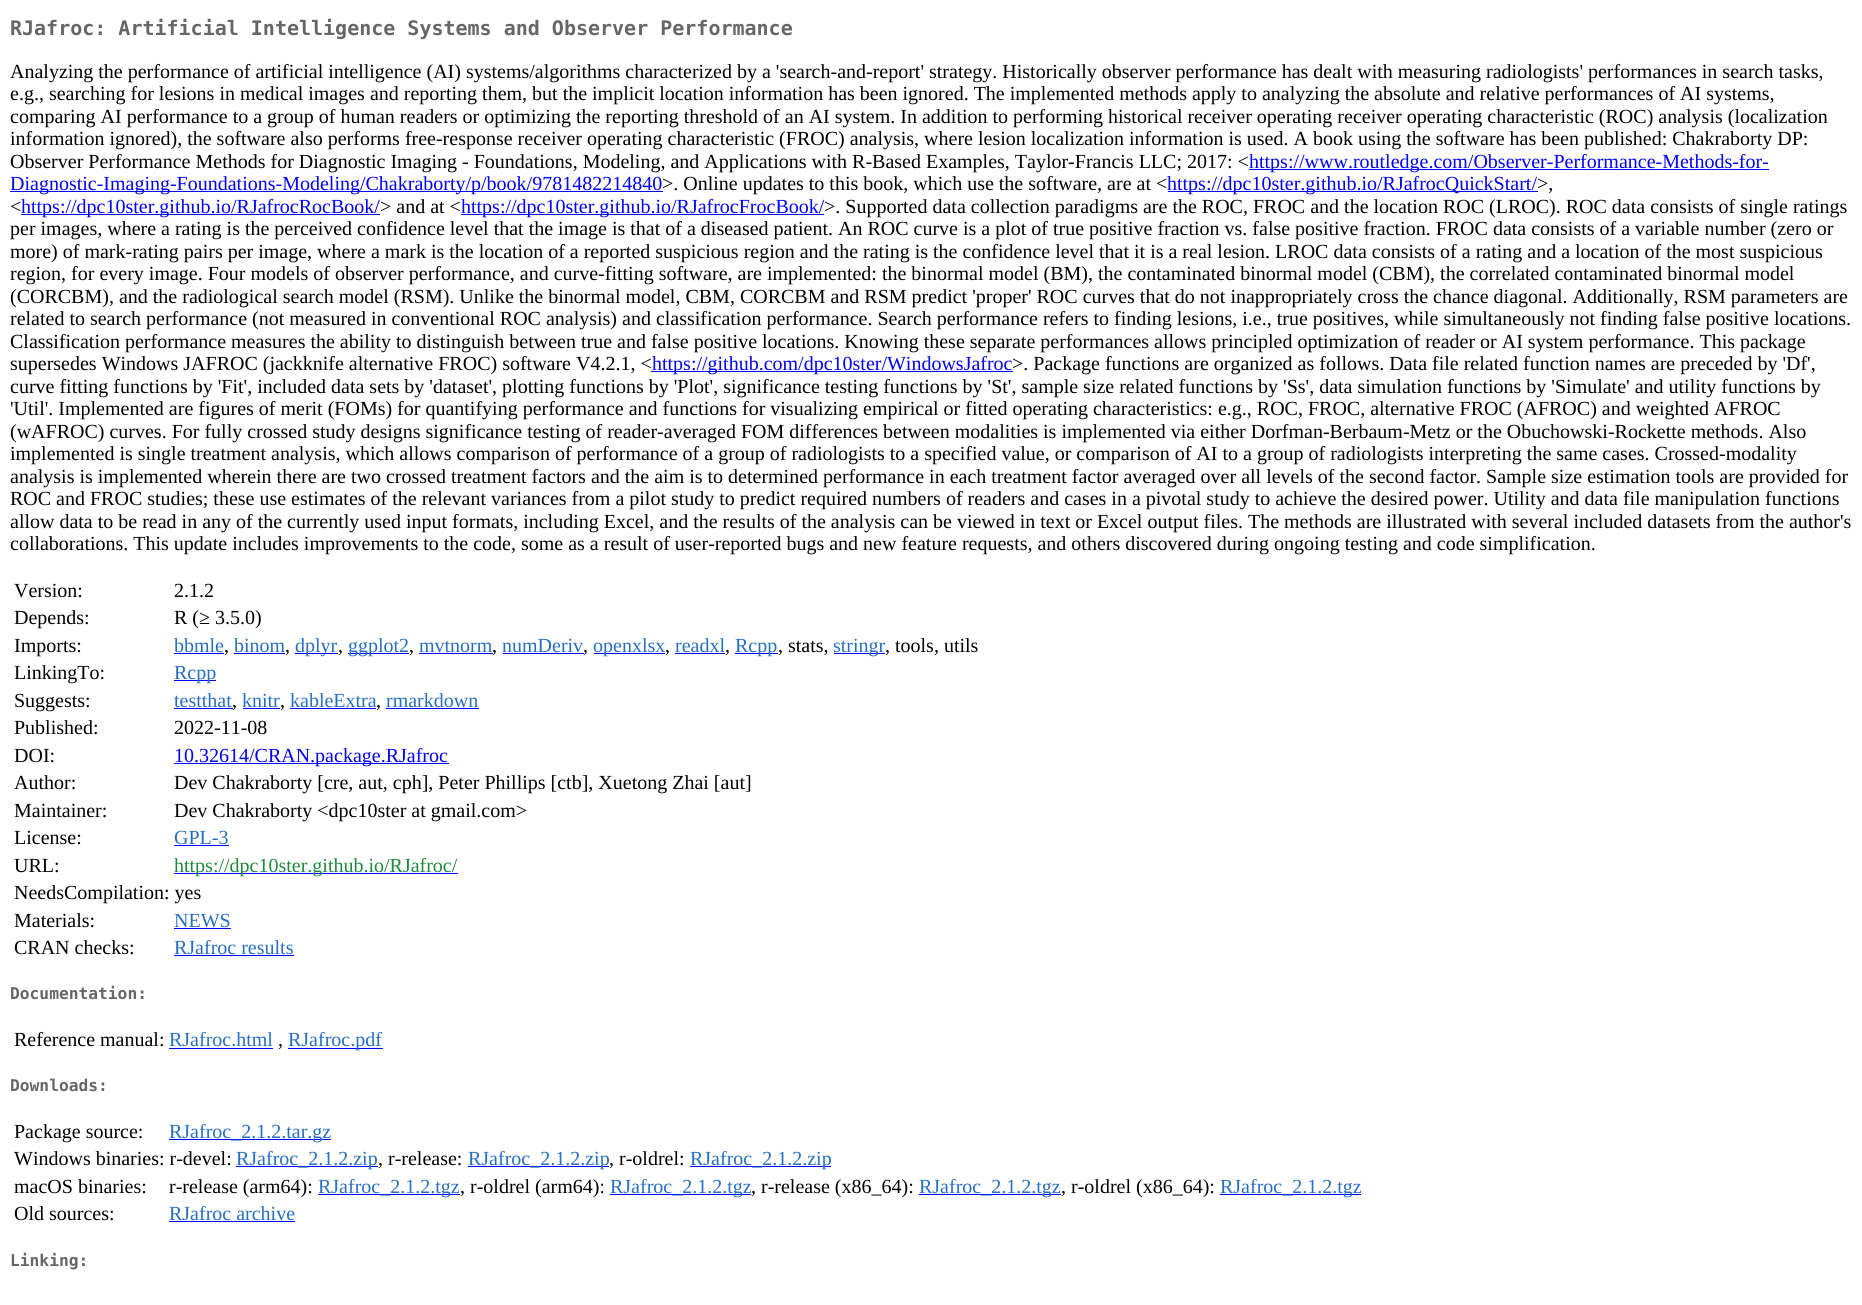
import math
import cairo

surface = cairo.ImageSurface(cairo.FORMAT_RGB24, 1862, 1305)
c = cairo.Context(surface)
options = cairo.FontOptions()
options.set_hint_metrics(cairo.HINT_METRICS_OFF)
options.set_hint_style(cairo.HINT_STYLE_NONE)
c.set_font_options(options)
c.set_miter_limit(4)
def C(code):
 c.set_source_rgb(*(v / 255 for v in bytes.fromhex(code[-6:])))
def F(family, size, italic, bold):
 c.select_font_face(family, cairo.FONT_SLANT_ITALIC if italic else cairo.FONT_SLANT_NORMAL, cairo.FONT_WEIGHT_BOLD if bold else cairo.FONT_WEIGHT_NORMAL)
 c.set_font_size(size)
def T(x, y, s):
 c.move_to(x, y)
 c.show_text(s)
def R(x, y, w, h):
 c.rectangle(x, y, w, h)
 c.fill()
C('ffffff')
c.paint()
F('DejaVu Sans Mono',20,0,1)
C('666666')
T(10,35,'RJafroc: Artificial Intelligence Systems and Observer Performance')
F('Liberation Serif',20,0,0)
C('000000')
T(10,78,'Analyzing the performance of artificial intelligence (AI) systems/algorithms characterized by a \'search-and-report\' strategy. Historically observer performance has dealt with measuring radiologists\' performances in search tasks,')
T(10,100,'e.g., searching for lesions in medical images and reporting them, but the implicit location information has been ignored. The implemented methods apply to analyzing the absolute and relative performances of AI systems,')
T(10,123,'comparing AI performance to a group of human readers or optimizing the reporting threshold of an AI system. In addition to performing historical receiver operating receiver operating characteristic (ROC) analysis (localization')
T(10,145,'information ignored), the software also performs free-response receiver operating characteristic (FROC) analysis, where lesion localization information is used. A book using the software has been published: Chakraborty DP:')
T(10,168,'Observer Performance Methods for Diagnostic Imaging - Foundations, Modeling, and Applications with R-Based Examples, Taylor-Francis LLC; 2017: <')
C('0000ff')
R(1249,169,520,1)
T(1249,168,'https://www.routledge.com/Observer-Performance-Methods-for-')
R(10,191,653,1)
T(10,190,'Diagnostic-Imaging-Foundations-Modeling/Chakraborty/p/book/9781482214840')
C('000000')
T(662,190,'>. Online updates to this book, which use the software, are at <')
C('0000ff')
R(1168,191,370,1)
T(1167,190,'https://dpc10ster.github.io/RJafrocQuickStart/')
C('000000')
T(1537,190,'>,')
T(10,213,'<')
C('0000ff')
R(21,214,359,1)
T(21,213,'https://dpc10ster.github.io/RJafrocRocBook/')
C('000000')
T(380,213,'> and at <')
C('0000ff')
R(461,214,363,1)
T(461,213,'https://dpc10ster.github.io/RJafrocFrocBook/')
C('000000')
T(824,213,'>. Supported data collection paradigms are the ROC, FROC and the location ROC (LROC). ROC data consists of single ratings')
T(10,235,'per images, where a rating is the perceived confidence level that the image is that of a diseased patient. An ROC curve is a plot of true positive fraction vs. false positive fraction. FROC data consists of a variable number (zero or')
T(10,258,'more) of mark-rating pairs per image, where a mark is the location of a reported suspicious region and the rating is the confidence level that it is a real lesion. LROC data consists of a rating and a location of the most suspicious')
T(10,280,'region, for every image. Four models of observer performance, and curve-fitting software, are implemented: the binormal model (BM), the contaminated binormal model (CBM), the correlated contaminated binormal model')
T(10,303,'(CORCBM), and the radiological search model (RSM). Unlike the binormal model, CBM, CORCBM and RSM predict \'proper\' ROC curves that do not inappropriately cross the chance diagonal. Additionally, RSM parameters are')
T(10,325,'related to search performance (not measured in conventional ROC analysis) and classification performance. Search performance refers to finding lesions, i.e., true positives, while simultaneously not finding false positive locations.')
T(10,348,'Classification performance measures the ability to distinguish between true and false positive locations. Knowing these separate performances allows principled optimization of reader or AI system performance. This package')
T(10,370,'supersedes Windows JAFROC (jackknife alternative FROC) software V4.2.1, <')
C('0000ff')
R(651,371,362,1)
T(652,370,'https://github.com/dpc10ster/WindowsJafroc')
C('000000')
T(1012,370,'>. Package functions are organized as follows. Data file related function names are preceded by \'Df\',')
T(10,393,'curve fitting functions by \'Fit\', included data sets by \'dataset\', plotting functions by \'Plot\', significance testing functions by \'St\', sample size related functions by \'Ss\', data simulation functions by \'Simulate\' and utility functions by')
T(10,415,'\'Util\'. Implemented are figures of merit (FOMs) for quantifying performance and functions for visualizing empirical or fitted operating characteristics: e.g., ROC, FROC, alternative FROC (AFROC) and weighted AFROC')
T(10,438,'(wAFROC) curves. For fully crossed study designs significance testing of reader-averaged FOM differences between modalities is implemented via either Dorfman-Berbaum-Metz or the Obuchowski-Rockette methods. Also')
T(10,460,'implemented is single treatment analysis, which allows comparison of performance of a group of radiologists to a specified value, or comparison of AI to a group of radiologists interpreting the same cases. Crossed-modality')
T(10,483,'analysis is implemented wherein there are two crossed treatment factors and the aim is to determined performance in each treatment factor averaged over all levels of the second factor. Sample size estimation tools are provided for')
T(10,505,'ROC and FROC studies; these use estimates of the relevant variances from a pilot study to predict required numbers of readers and cases in a pivotal study to achieve the desired power. Utility and data file manipulation functions')
T(10,528,'allow data to be read in any of the currently used input formats, including Excel, and the results of the analysis can be viewed in text or Excel output files. The methods are illustrated with several included datasets from the author\'s')
T(10,550,'collaborations. This update includes improvements to the code, some as a result of user-reported bugs and new feature requests, and others discovered during ongoing testing and code simplification.')
T(14,597,'Version:')
T(174,597,'2.1.2')
T(14,624,'Depends:')
T(174,624,'R (≥ 3.5.0)')
T(14,652,'Imports:')
C('276dc3')
T(174,652,'bbmle')
C('0000ff')
R(174,653,50,1)
C('000000')
T(224,652,',')
C('276dc3')
T(234,652,'binom')
C('0000ff')
R(234,653,51,1)
C('000000')
T(285,652,',')
C('0000ff')
R(295,653,43,1)
C('276dc3')
T(295,652,'dplyr')
C('000000')
T(338,652,',')
C('0000ff')
R(348,653,61,1)
C('276dc3')
T(348,652,'ggplot2')
C('000000')
T(409,652,',')
C('276dc3')
T(419,652,'mvtnorm')
C('0000ff')
R(419,653,74,1)
C('000000')
T(492,652,',')
C('276dc3')
T(502,652,'numDeriv')
C('0000ff')
R(503,653,81,1)
C('000000')
T(583,652,',')
C('0000ff')
R(594,653,71,1)
C('276dc3')
T(593,652,'openxlsx')
C('000000')
T(665,652,',')
C('276dc3')
T(675,652,'readxl')
C('0000ff')
R(675,653,50,1)
C('000000')
T(725,652,',')
C('0000ff')
R(735,653,43,1)
C('276dc3')
T(735,652,'Rcpp')
C('000000')
T(778,652,', stats,')
C('0000ff')
R(834,653,51,1)
C('276dc3')
T(833,652,'stringr')
C('000000')
T(885,652,', tools, utils')
T(14,679,'LinkingTo:')
C('0000ff')
R(174,680,42,1)
C('276dc3')
T(174,679,'Rcpp')
C('000000')
T(14,707,'Suggests:')
C('276dc3')
T(174,707,'testthat')
C('0000ff')
R(174,708,59,1)
C('000000')
T(232,707,',')
C('276dc3')
T(242,707,'knitr')
C('0000ff')
R(243,708,37,1)
C('000000')
T(280,707,',')
C('276dc3')
T(290,707,'kableExtra')
C('0000ff')
R(290,708,86,1)
C('000000')
T(376,707,',')
C('276dc3')
T(386,707,'rmarkdown')
C('0000ff')
R(386,708,93,1)
C('000000')
T(14,734,'Published:')
T(174,734,'2022-11-08')
T(14,762,'DOI:')
C('0000ff')
R(174,763,275,1)
T(174,762,'10.32614/CRAN.package.RJafroc')
C('000000')
T(14,789,'Author:')
T(174,789,'Dev Chakraborty [cre, aut, cph], Peter Phillips [ctb], Xuetong Zhai [aut]')
T(14,817,'Maintainer:')
T(174,817,'Dev Chakraborty <dpc10ster at gmail.com>')
T(14,844,'License:')
C('276dc3')
T(174,844,'GPL-3')
C('0000ff')
R(174,845,55,1)
C('000000')
T(14,872,'URL:')
C('0000ff')
R(174,873,284,1)
C('1f883d')
T(174,872,'https://dpc10ster.github.io/RJafroc/')
C('000000')
T(14,899,'NeedsCompilation: yes')
T(14,927,'Materials:')
C('276dc3')
T(174,927,'NEWS')
C('0000ff')
R(174,928,57,1)
C('000000')
T(14,954,'CRAN checks:')
C('276dc3')
T(174,954,'RJafroc results')
C('0000ff')
R(174,955,120,1)
F('DejaVu Sans Mono',16.25,0,1)
C('666666')
T(10,999,'Documentation:')
F('Liberation Serif',20,0,0)
C('000000')
T(14,1046,'Reference manual:')
C('276dc3')
T(169,1046,'RJafroc.html')
C('0000ff')
R(169,1048,104,1)
C('000000')
T(278,1046,',')
C('0000ff')
R(288,1048,95,1)
C('276dc3')
T(288,1046,'RJafroc.pdf')
F('DejaVu Sans Mono',16.25,0,1)
C('666666')
T(10,1091,'Downloads:')
F('Liberation Serif',20,0,0)
C('000000')
T(14,1138,'Package source:')
C('0000ff')
R(169,1139,162,1)
C('276dc3')
T(169,1138,'RJafroc_2.1.2.tar.gz')
C('000000')
T(14,1165,'Windows binaries: r-devel:')
C('0000ff')
R(236,1166,142,1)
C('276dc3')
T(236,1165,'RJafroc_2.1.2.zip')
C('000000')
T(378,1165,', r-release:')
C('0000ff')
R(468,1166,141,1)
C('276dc3')
T(468,1165,'RJafroc_2.1.2.zip')
C('000000')
T(609,1165,', r-oldrel:')
C('0000ff')
R(690,1166,141,1)
C('276dc3')
T(690,1165,'RJafroc_2.1.2.zip')
C('000000')
T(14,1193,'macOS binaries:')
T(169,1193,'r-release (arm64):')
C('0000ff')
R(318,1194,142,1)
C('276dc3')
T(318,1193,'RJafroc_2.1.2.tgz')
C('000000')
T(460,1193,', r-oldrel (arm64):')
C('0000ff')
R(610,1194,141,1)
C('276dc3')
T(610,1193,'RJafroc_2.1.2.tgz')
C('000000')
T(751,1193,', r-release (x86_64):')
C('0000ff')
R(919,1194,142,1)
C('276dc3')
T(919,1193,'RJafroc_2.1.2.tgz')
C('000000')
T(1061,1193,', r-oldrel (x86_64):')
C('0000ff')
R(1220,1194,141,1)
C('276dc3')
T(1220,1193,'RJafroc_2.1.2.tgz')
C('000000')
T(14,1220,'Old sources:')
C('276dc3')
T(169,1220,'RJafroc archive')
C('0000ff')
R(169,1221,126,1)
F('DejaVu Sans Mono',16.25,0,1)
C('666666')
T(10,1266,'Linking:')
surface.write_to_png('o.png')
